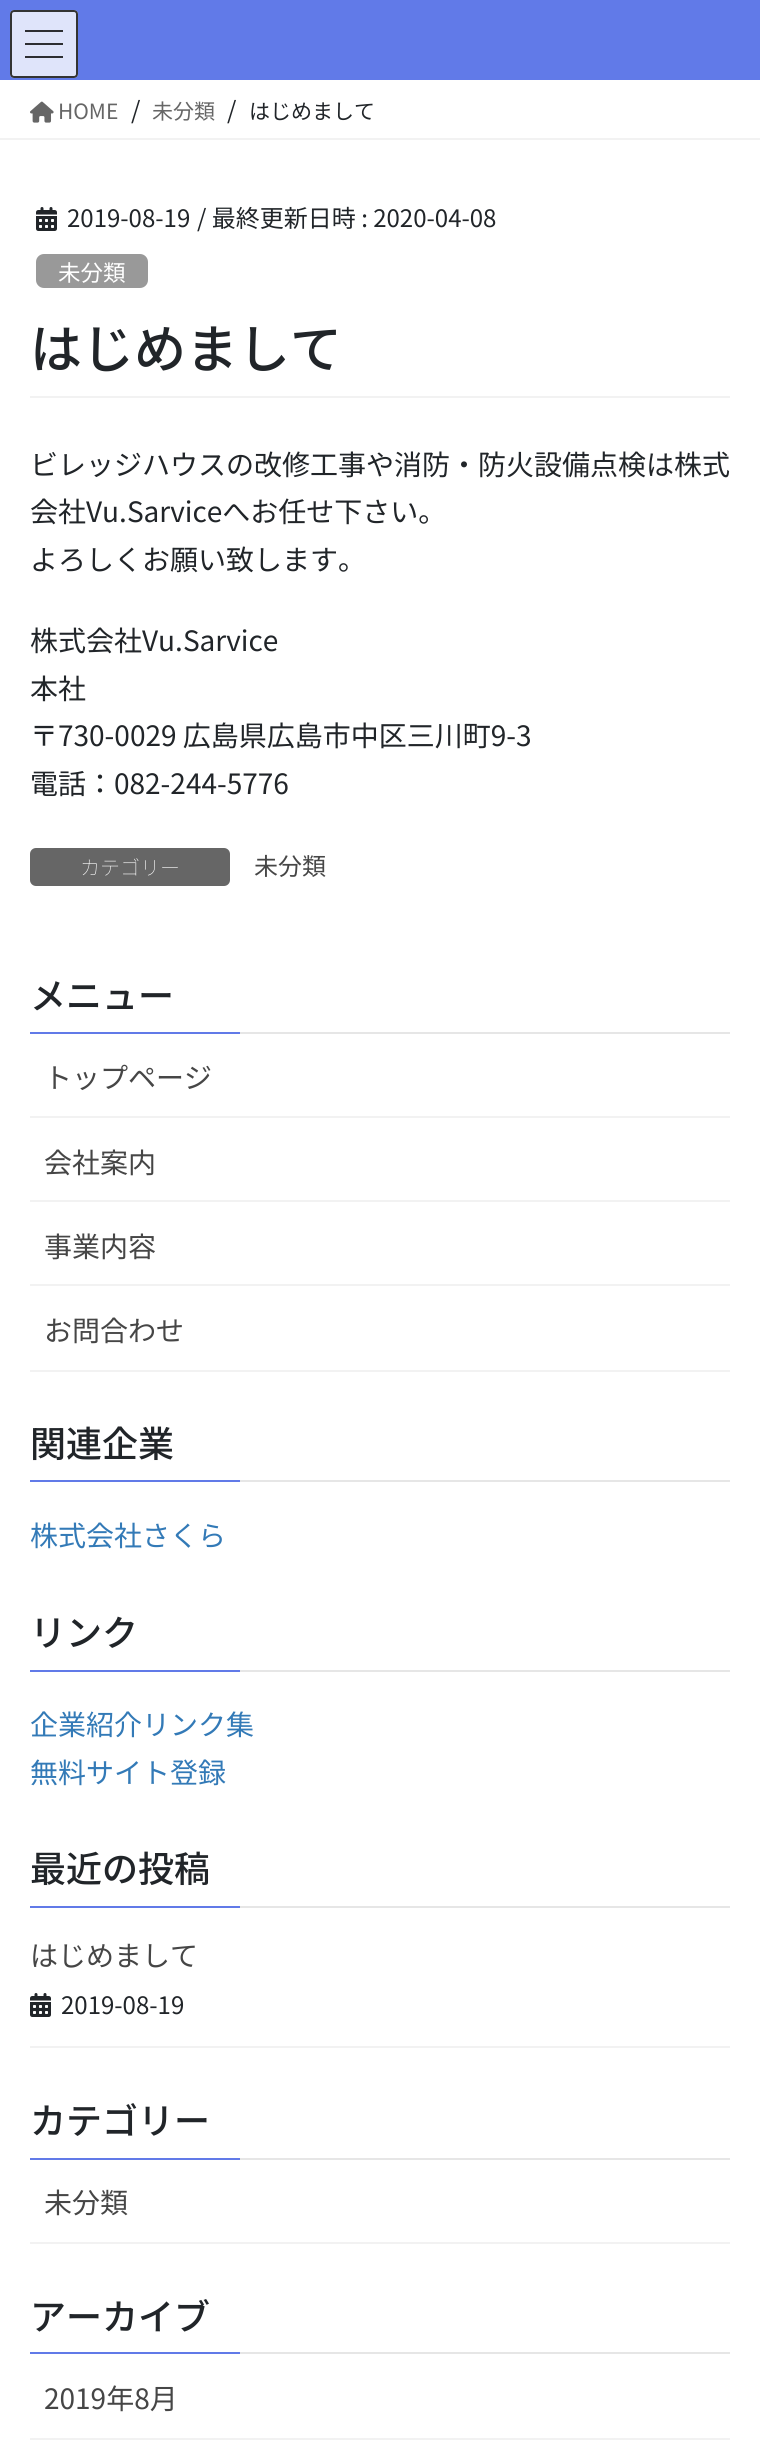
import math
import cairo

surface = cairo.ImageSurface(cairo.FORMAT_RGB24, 760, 2461)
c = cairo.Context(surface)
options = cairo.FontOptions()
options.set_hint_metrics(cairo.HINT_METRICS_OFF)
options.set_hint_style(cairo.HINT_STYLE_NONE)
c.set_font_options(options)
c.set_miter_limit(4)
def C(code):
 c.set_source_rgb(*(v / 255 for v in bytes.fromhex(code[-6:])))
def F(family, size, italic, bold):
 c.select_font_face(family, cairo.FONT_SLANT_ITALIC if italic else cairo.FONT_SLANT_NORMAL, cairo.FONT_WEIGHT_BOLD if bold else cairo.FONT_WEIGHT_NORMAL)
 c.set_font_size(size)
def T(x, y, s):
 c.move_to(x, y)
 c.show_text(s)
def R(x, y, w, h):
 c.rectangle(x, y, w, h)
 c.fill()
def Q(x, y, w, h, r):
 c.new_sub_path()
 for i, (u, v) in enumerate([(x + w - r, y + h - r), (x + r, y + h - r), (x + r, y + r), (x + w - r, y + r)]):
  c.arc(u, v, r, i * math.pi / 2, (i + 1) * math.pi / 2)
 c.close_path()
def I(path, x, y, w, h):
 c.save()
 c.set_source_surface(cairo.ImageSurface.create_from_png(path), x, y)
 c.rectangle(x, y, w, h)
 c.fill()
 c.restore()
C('ffffff')
c.paint()
C('617ae8')
R(0,0,760,80)
C('dfe4fa')
Q(10,10,68,68,4)
c.fill()
C('2d2e32')
R(25,30,38,2)
R(25,43,38,2)
R(25,56,38,2)
Q(11,11,66,66,3)
C('333333')
c.stroke()
C('f2f2f2')
R(0,138,760,2)
I('1.png',30,101,24,22)
F('Noto Sans JP',21,0,0)
C('666666')
T(58,119,'HOME')
F('Noto Sans JP',24,0,0)
C('212529')
T(131,119,'/')
F('Noto Sans JP',21,0,0)
C('666666')
T(152,119,'未分類')
F('Noto Sans JP',24,0,0)
C('212529')
T(227,119,'/')
F('Noto Sans JP',21,0,0)
T(249,119,'はじめまして')
C('f2f2f2')
R(30,396,700,2)
I('2.png',36,207,21,24)
F('Noto Sans JP',24,0,0)
C('212529')
T(67,227,'2019-08-19')
T(197,227,'/ 最終更新日時 : 2020-04-08')
C('999999')
Q(36,254,112,34,8)
c.fill()
F('Noto Sans JP',22.5,0,0)
C('ffffff')
T(58,281,'未分類')
F('Noto Sans JP Medium',52,0,0)
C('212529')
T(30,368,'はじめまして')
F('Noto Sans JP',28,0,0)
T(30,475,'ビレッジハウスの改修工事や消防・防火設備点検は株式')
T(30,522,'会社Vu.Sarviceへお任せ下さい。')
T(30,570,'よろしくお願い致します。')
T(30,651,'株式会社Vu.Sarvice')
T(30,699,'本社')
T(30,746,'〒730-0029 広島県広島市中区三川町9-3')
T(30,794,'電話：082-244-5776')
C('666666')
Q(30,848,200,38,6)
c.fill()
F('Noto Sans JP Thin',20,0,0)
C('ffffff')
T(80,875,'カテゴリー')
F('Noto Sans JP',24,0,0)
C('464646')
T(254,875,'未分類')
C('e6e6e6')
R(240,1032,490,2)
F('Noto Sans JP Medium',36,0,0)
C('212529')
T(30,1009,'メニュー')
C('617ae8')
R(30,1032,210,2)
C('f2f2f2')
R(30,1116,700,2)
F('Noto Sans JP',28,0,0)
C('464646')
T(44,1088,'トップページ')
C('f2f2f2')
R(30,1200,700,2)
C('464646')
T(44,1173,'会社案内')
C('f2f2f2')
R(30,1284,700,2)
C('464646')
T(44,1257,'事業内容')
C('f2f2f2')
R(30,1370,700,2)
C('464646')
T(44,1341,'お問合わせ')
C('e6e6e6')
R(240,1480,490,2)
F('Noto Sans JP Medium',36,0,0)
C('212529')
T(30,1457,'関連企業')
C('617ae8')
R(30,1480,210,2)
F('Noto Sans JP',28,0,0)
C('337ab7')
T(30,1546,'株式会社さくら')
C('e6e6e6')
R(240,1670,490,2)
F('Noto Sans JP Medium',36,0,0)
C('212529')
T(30,1646,'リンク')
C('617ae8')
R(30,1670,210,2)
F('Noto Sans JP',28,0,0)
C('337ab7')
T(30,1735,'企業紹介リンク集')
T(30,1783,'無料サイト登録')
C('e6e6e6')
R(240,1906,490,2)
F('Noto Sans JP Medium',36,0,0)
C('212529')
T(30,1882,'最近の投稿')
C('617ae8')
R(30,1906,210,2)
C('f2f2f2')
R(30,2046,700,2)
F('Noto Sans JP',28,0,0)
C('464646')
T(30,1966,'はじめまして')
I('2.png',30,1993,21,24)
F('Noto Sans JP',24,0,0)
C('212529')
T(61,2014,'2019-08-19')
C('e6e6e6')
R(240,2158,490,2)
F('Noto Sans JP Medium',36,0,0)
C('212529')
T(30,2134,'カテゴリー')
C('617ae8')
R(30,2158,210,2)
C('f2f2f2')
R(30,2242,700,2)
F('Noto Sans JP',28,0,0)
C('464646')
T(44,2213,'未分類')
C('e6e6e6')
R(240,2352,490,2)
F('Noto Sans JP Medium',36,0,0)
C('212529')
T(30,2330,'アーカイブ')
C('617ae8')
R(30,2352,210,2)
C('f2f2f2')
R(30,2438,700,2)
F('Noto Sans JP',28,0,0)
C('464646')
T(44,2409,'2019年8月')
surface.write_to_png('o.png')
